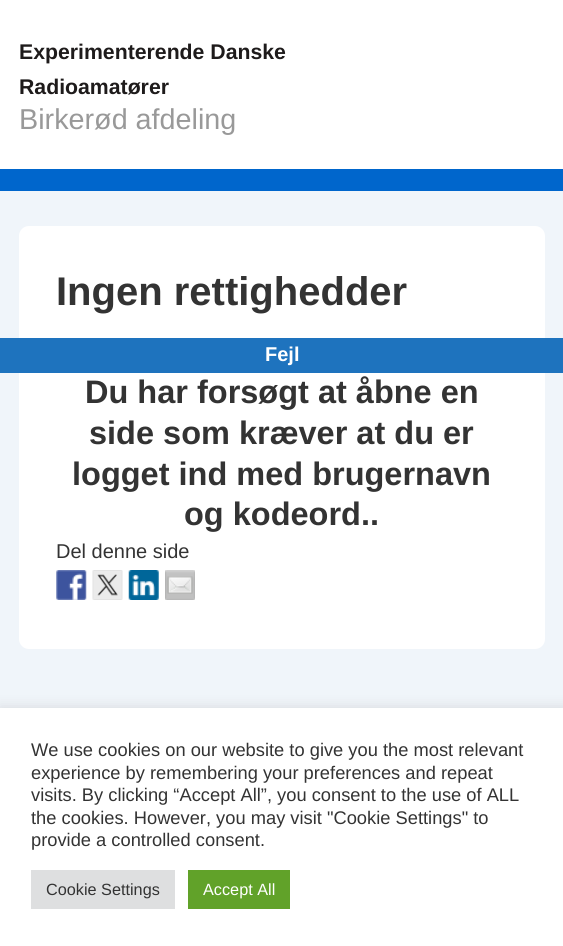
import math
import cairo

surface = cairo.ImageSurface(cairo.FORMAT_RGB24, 563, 946)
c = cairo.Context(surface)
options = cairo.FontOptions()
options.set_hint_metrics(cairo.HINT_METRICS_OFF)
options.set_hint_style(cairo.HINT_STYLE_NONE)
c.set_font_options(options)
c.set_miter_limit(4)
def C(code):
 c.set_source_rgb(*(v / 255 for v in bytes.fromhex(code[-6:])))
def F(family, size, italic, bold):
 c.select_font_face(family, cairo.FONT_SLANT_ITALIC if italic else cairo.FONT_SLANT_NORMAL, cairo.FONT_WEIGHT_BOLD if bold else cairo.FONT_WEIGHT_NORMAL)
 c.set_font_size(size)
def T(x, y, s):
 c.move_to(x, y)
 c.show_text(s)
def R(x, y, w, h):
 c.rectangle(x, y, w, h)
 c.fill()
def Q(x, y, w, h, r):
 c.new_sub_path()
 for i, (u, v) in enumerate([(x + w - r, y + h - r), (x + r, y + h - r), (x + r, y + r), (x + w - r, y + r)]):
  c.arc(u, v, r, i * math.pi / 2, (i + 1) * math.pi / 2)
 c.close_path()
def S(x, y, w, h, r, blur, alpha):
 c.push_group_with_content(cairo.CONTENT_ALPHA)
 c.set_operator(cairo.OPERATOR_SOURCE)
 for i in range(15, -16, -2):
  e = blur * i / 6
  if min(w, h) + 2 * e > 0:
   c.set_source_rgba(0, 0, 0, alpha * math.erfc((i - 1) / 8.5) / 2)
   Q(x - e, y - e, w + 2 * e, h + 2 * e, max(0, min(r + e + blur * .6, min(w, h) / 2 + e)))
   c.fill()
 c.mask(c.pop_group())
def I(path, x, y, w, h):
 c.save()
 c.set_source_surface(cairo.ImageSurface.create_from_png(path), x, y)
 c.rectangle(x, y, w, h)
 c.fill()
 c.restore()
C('f0f5fa')
c.paint()
C('ffffff')
R(0,0,563,169)
C('0066cc')
R(0,169,563,22)
F('Liberation Sans',21.25,0,1)
C('1e1b1b')
T(19,59,'Experimenterende Danske')
T(19,94,'Radioamatører')
F('Liberation Sans',28.75,0,0)
C('999999')
T(19,129,'Birkerød afdeling')
C('ffffff')
Q(19,226,526,423,10)
c.fill()
F('Liberation Sans',40,0,1)
C('333333')
T(56,305,'Ingen rettighedder')
C('1e73be')
R(0,338,563,35)
F('Liberation Sans',20,0,1)
C('ffffff')
T(265,361,'Fejl')
F('Liberation Sans',32.5,0,1)
C('333333')
T(85,403,'Du har forsøgt at åbne en')
T(89,444,'side som kræver at du er')
T(72,485,'logget ind med brugernavn')
T(184,525,'og kodeord..')
F('Liberation Sans',20,0,0)
T(56,558,'Del denne side')
I('1.png',56,570,31,30)
I('2.png',92,570,31,30)
I('3.png',128,570,31,30)
I('4.png',165,570,30,30)
C('acabab')
S(0,706,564,239,0,6,.3)
C('ffffff')
R(0,708,563,238)
F('Liberation Sans',18.3,0,0)
C('333333')
T(31,756,'We use cookies on our website to give you the most relevant')
T(31,779,'experience by remembering your preferences and repeat')
T(31,801,'visits. By clicking “Accept All”, you consent to the use of ALL')
T(31,824,'the cookies. However, you may visit "Cookie Settings" to')
T(31,846,'provide a controlled consent.')
C('dedfe0')
R(31,870,144,39)
F('Liberation Sans',16.25,0,0)
C('333333')
T(46,895,'Cookie Settings')
C('61a229')
R(188,870,102,39)
C('ffffff')
T(203,895,'Accept All')
surface.write_to_png('o.png')
